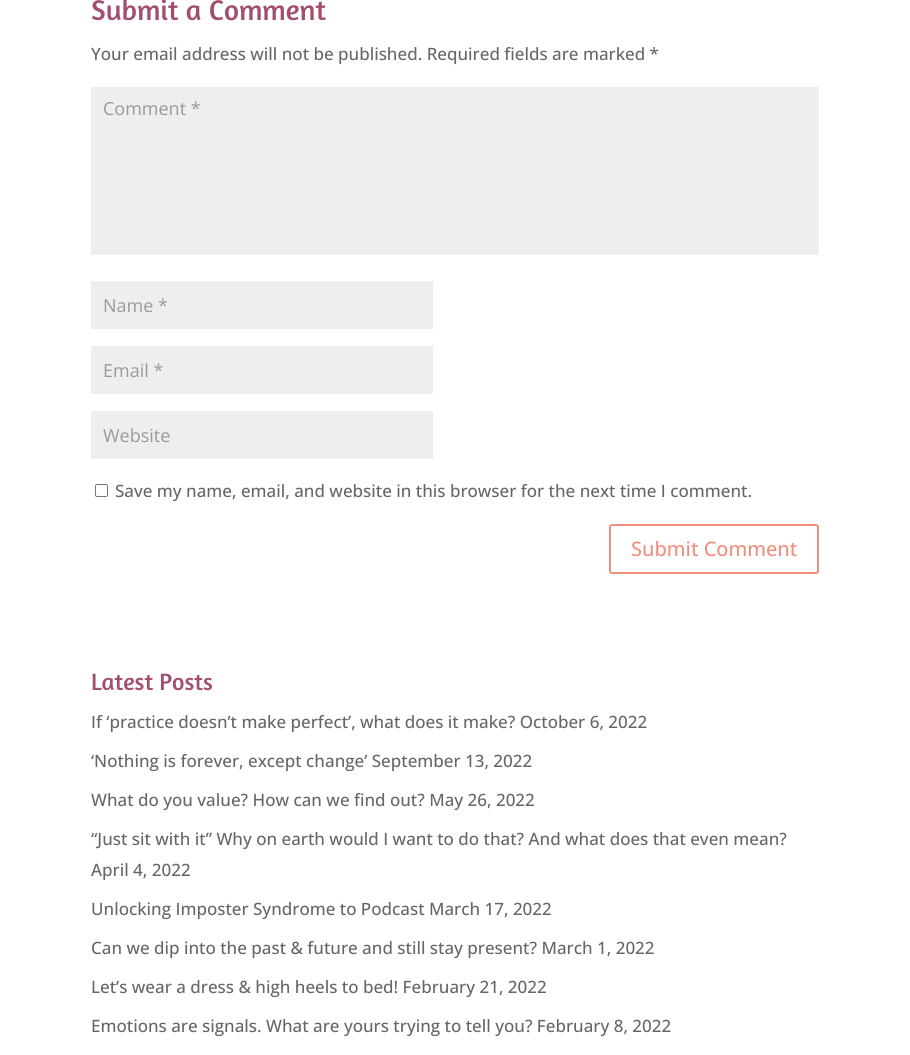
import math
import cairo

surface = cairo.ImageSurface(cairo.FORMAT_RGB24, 910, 1055)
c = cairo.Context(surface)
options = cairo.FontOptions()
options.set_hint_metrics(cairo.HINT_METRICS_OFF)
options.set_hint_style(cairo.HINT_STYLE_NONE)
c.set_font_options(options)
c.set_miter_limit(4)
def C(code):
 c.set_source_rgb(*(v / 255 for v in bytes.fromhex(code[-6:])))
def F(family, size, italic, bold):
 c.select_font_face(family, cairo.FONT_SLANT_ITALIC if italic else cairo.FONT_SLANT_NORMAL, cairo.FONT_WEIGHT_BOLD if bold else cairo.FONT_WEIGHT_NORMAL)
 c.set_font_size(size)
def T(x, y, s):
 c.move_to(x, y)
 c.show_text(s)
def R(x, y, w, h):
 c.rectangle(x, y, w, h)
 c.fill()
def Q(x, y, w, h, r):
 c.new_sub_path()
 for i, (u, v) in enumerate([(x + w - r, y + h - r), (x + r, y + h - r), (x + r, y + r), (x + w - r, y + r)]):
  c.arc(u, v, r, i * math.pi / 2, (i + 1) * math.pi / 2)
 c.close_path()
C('ffffff')
c.paint()
F('Amaranth',29,0,0)
C('a24e6e')
T(91,20,'Submit a Comment')
F('Open Sans Medium',17,0,0)
C('666666')
T(91,60,'Your email address will not be published. Required fields are marked *')
C('eeeeee')
R(91,87,728,168)
F('Open Sans',18,0,0)
C('999999')
T(103,115,'Comment *')
C('eeeeee')
R(91,281,342,48)
C('999999')
T(103,312,'Name *')
C('eeeeee')
R(91,346,342,48)
C('999999')
T(103,377,'Email *')
C('eeeeee')
R(91,411,342,48)
C('999999')
T(103,442,'Website')
Q(95.5,484.5,12,12,1.5)
C('767676')
c.set_line_width(1)
c.stroke()
F('Open Sans Medium',17,0,0)
C('666666')
T(115,497,'Save my name, email, and website in this browser for the next time I comment.')
Q(610,525,208,48,2)
C('f18f7e')
c.set_line_width(2)
c.stroke()
F('Open Sans Medium',20,0,0)
T(631,556,'Submit Comment')
F('Amaranth',24,0,0)
C('a24e6e')
T(91,690,'Latest Posts')
F('Open Sans Medium',17,0,0)
C('666666')
T(91,728,'If ‘practice doesn’t make perfect’, what does it make? October 6, 2022')
T(91,767,'‘Nothing is forever, except change’ September 13, 2022')
T(91,806,'What do you value? How can we find out? May 26, 2022')
T(91,845,'“Just sit with it” Why on earth would I want to do that? And what does that even mean?')
T(91,876,'April 4, 2022')
T(91,915,'Unlocking Imposter Syndrome to Podcast March 17, 2022')
T(91,954,'Can we dip into the past & future and still stay present? March 1, 2022')
T(91,993,'Let’s wear a dress & high heels to bed! February 21, 2022')
T(91,1032,'Emotions are signals. What are yours trying to tell you? February 8, 2022')
surface.write_to_png('o.png')
